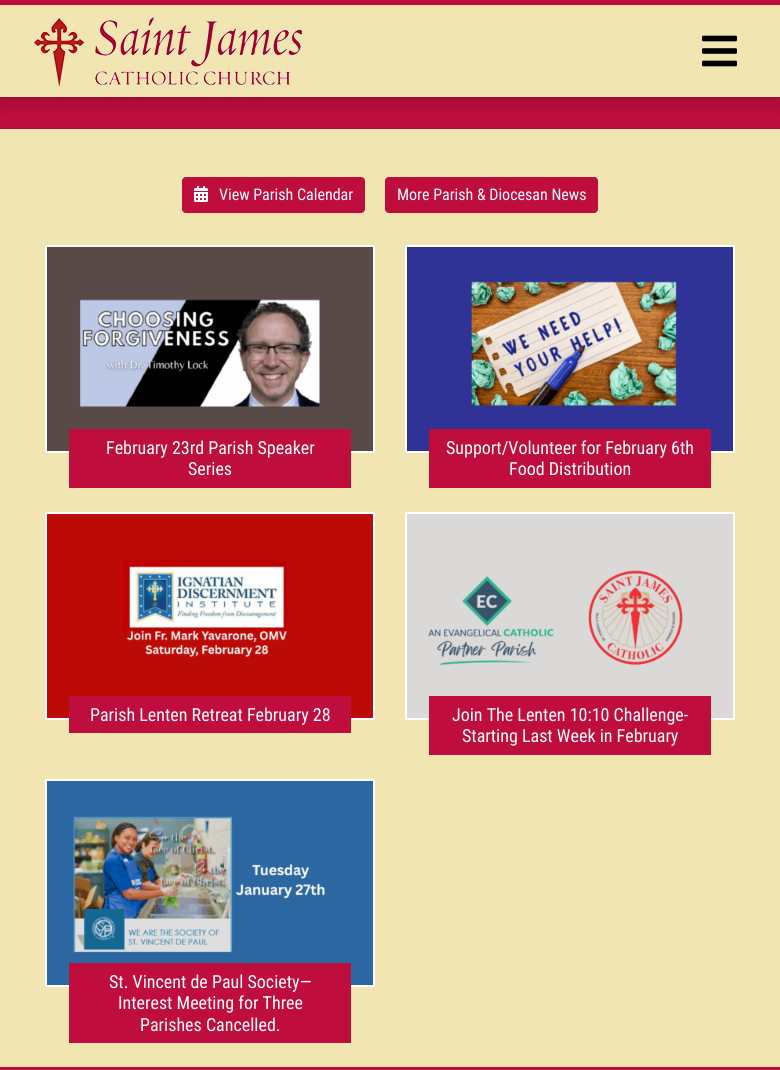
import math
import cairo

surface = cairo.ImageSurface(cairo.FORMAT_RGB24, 780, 1070)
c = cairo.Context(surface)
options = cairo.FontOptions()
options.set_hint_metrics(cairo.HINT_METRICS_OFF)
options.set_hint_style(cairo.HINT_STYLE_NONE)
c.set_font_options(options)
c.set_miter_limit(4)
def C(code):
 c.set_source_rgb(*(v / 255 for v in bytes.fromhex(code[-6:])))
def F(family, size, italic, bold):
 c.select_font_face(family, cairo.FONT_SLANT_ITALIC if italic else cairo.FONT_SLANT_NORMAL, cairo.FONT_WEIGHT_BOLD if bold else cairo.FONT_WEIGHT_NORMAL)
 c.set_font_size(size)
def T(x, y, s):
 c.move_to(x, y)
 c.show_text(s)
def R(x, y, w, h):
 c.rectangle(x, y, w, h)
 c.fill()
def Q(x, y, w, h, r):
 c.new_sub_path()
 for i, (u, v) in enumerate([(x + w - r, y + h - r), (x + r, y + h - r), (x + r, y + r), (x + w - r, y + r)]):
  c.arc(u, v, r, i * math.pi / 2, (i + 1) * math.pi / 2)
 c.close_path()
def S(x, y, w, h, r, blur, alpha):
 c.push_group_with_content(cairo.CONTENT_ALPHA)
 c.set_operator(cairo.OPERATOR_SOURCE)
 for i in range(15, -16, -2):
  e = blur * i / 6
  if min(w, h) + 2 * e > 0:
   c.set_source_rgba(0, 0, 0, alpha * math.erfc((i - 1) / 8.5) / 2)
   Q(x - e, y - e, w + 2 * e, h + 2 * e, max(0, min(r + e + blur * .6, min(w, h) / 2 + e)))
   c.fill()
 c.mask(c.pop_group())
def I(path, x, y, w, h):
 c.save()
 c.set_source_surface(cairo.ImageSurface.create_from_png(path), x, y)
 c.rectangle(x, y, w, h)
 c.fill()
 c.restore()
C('bf0d3e')
c.paint()
C('f1e6b2')
R(0,129,780,938)
C('000000')
S(0,8,780,97,0,8,.15)
C('f1e6b2')
R(0,5,780,92)
C('bf0d3e')
R(0,0,780,5)
I('1.png',33,17,270,70)
I('2.png',702,35,35,32)
Q(182,177,183,36,4)
c.fill()
I('3.png',194,186,14,16)
F('Roboto Condensed',16,0,0)
C('ffffff')
T(219,200,'View Parish Calendar')
C('bf0d3e')
Q(385,177,213,36,4)
c.fill()
C('ffffff')
T(397,200,'More Parish & Diocesan News')
c.rectangle(46,246,328,206)
c.stroke()
I('4.png',47,247,326,204)
C('bf0d3e')
R(69,429,282,59)
F('Roboto Condensed',18,0,0)
C('ffffff')
T(106,454,'February 23rd Parish Speaker')
T(188,475,'Series')
c.rectangle(406,246,328,206)
c.stroke()
I('5.png',407,247,326,204)
C('bf0d3e')
R(429,429,282,59)
C('ffffff')
T(446,454,'Support/Volunteer for February 6th')
T(509,475,'Food Distribution')
c.rectangle(46,513,328,206)
c.stroke()
I('6.png',47,514,326,204)
C('bf0d3e')
R(69,696,282,37)
C('ffffff')
T(90,721,'Parish Lenten Retreat February 28')
c.rectangle(406,513,328,206)
c.stroke()
I('7.png',407,514,326,204)
C('bf0d3e')
R(429,696,282,59)
C('ffffff')
T(452,721,'Join The Lenten 10:10 Challenge-')
T(462,742,'Starting Last Week in February')
c.rectangle(46,780,328,206)
c.stroke()
I('8.png',47,781,326,204)
C('bf0d3e')
R(69,963,282,80)
C('ffffff')
T(109,988,'St. Vincent de Paul Society—')
T(118,1009,'Interest Meeting for Three')
T(140,1031,'Parishes Cancelled.')
surface.write_to_png('o.png')
